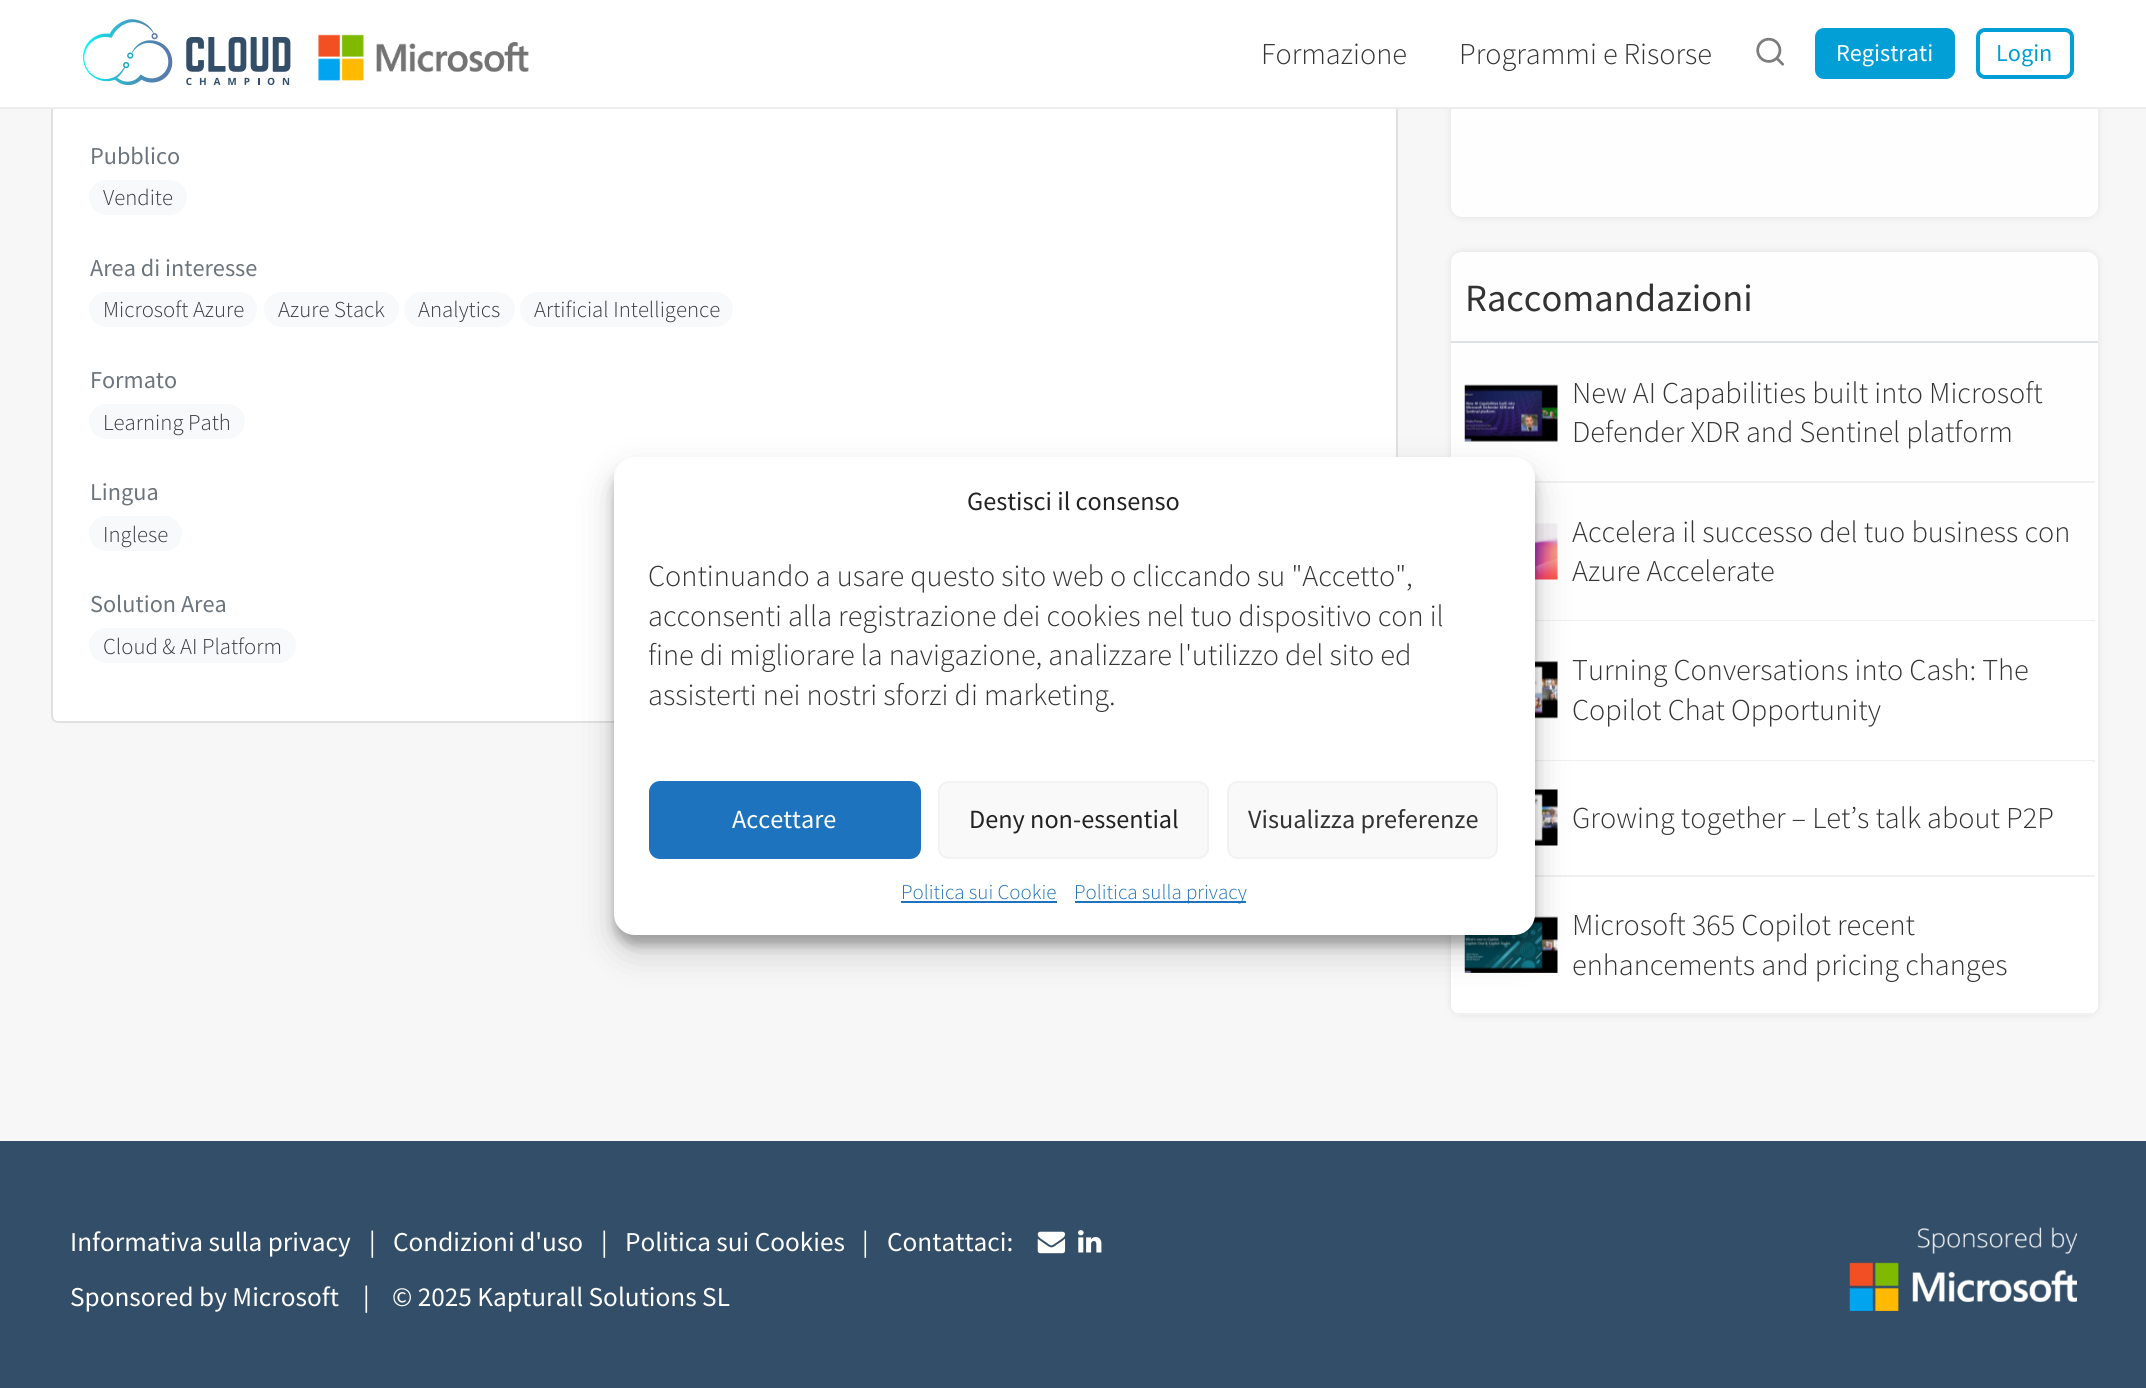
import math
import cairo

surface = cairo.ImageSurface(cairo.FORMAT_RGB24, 2146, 1388)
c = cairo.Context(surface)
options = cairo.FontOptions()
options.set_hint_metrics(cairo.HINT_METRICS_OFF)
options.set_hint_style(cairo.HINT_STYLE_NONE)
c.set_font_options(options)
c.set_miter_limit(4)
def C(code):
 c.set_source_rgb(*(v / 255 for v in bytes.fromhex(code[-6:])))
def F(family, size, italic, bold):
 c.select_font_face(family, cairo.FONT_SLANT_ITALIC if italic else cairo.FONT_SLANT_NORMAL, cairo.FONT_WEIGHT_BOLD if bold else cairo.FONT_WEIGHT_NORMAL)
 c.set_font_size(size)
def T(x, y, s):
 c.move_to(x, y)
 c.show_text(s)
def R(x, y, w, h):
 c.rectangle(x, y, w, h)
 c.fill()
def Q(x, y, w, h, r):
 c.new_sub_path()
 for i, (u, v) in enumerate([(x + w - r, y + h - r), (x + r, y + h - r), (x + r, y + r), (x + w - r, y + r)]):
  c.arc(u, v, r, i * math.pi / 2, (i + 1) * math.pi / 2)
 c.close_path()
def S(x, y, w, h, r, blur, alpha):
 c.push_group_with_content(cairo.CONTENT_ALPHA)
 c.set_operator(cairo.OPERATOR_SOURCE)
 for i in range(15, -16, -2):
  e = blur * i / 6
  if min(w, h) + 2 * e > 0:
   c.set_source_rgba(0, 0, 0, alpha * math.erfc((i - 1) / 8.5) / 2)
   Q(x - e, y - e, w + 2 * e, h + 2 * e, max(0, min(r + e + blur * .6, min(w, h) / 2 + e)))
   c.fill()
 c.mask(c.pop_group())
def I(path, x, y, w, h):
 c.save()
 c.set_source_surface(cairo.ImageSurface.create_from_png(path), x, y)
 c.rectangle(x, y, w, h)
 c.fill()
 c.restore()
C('334e68')
c.paint()
C('f7f7f7')
R(0,109,2146,1032)
C('ffffff')
Q(51,-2,1347,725,7)
c.fill()
Q(52,-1,1345,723,6)
c.set_source_rgba(0,0,0,0.12)
c.stroke()
C('dfdfdf')
S(1451,-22,647,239,11,3.5,1)
C('fefefe')
Q(1451,-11,647,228,11)
c.fill()
C('ffffff')
R(0,0,2146,107)
C('ededed')
R(0,107,2146,2)
I('1.png',82,19,209,67)
I('2.png',318,34,211,47)
F('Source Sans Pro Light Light',30.3,0,0)
C('333333')
T(1261,64,'Formazione')
T(1459,64,'Programmi e Risorse')
I('3.png',1756,37,28,29)
C('029fd7')
Q(1817,30,136,47,7)
c.fill_preserve()
c.set_line_width(4)
c.stroke()
F('Source Sans Pro',24.25,0,0)
C('ffffff')
T(1836,61,'Registrati')
Q(1978,30,94,47,7)
C('029fd7')
c.stroke()
T(1996,61,'Login')
C('6c757d')
T(90,164,'Pubblico')
C('f8f9fa')
Q(89,180,98,35,17.5)
c.fill()
F('Source Sans Pro Light Light',22.75,0,0)
C('343a40')
T(103,205,'Vendite')
F('Source Sans Pro',24.25,0,0)
C('6c757d')
T(90,276,'Area di interesse')
C('f8f9fa')
Q(89,292,168,35,17.5)
c.fill()
F('Source Sans Pro Light Light',22.75,0,0)
C('343a40')
T(103,317,'Microsoft Azure')
C('f8f9fa')
Q(264,292,135,35,17.5)
c.fill()
C('343a40')
T(278,317,'Azure Stack')
C('f8f9fa')
Q(404,292,111,35,17.5)
c.fill()
C('343a40')
T(418,317,'Analytics')
C('f8f9fa')
Q(520,292,213,35,17.5)
c.fill()
C('343a40')
T(534,317,'Artificial Intelligence')
F('Source Sans Pro',24.25,0,0)
C('6c757d')
T(90,388,'Formato')
C('f8f9fa')
Q(89,404,156,35,17.5)
c.fill()
F('Source Sans Pro Light Light',22.75,0,0)
C('343a40')
T(103,430,'Learning Path')
F('Source Sans Pro',24.25,0,0)
C('6c757d')
T(90,500,'Lingua')
C('f8f9fa')
Q(89,516,93,35,17.5)
c.fill()
F('Source Sans Pro Light Light',22.75,0,0)
C('343a40')
T(103,542,'Inglese')
F('Source Sans Pro',24.25,0,0)
C('6c757d')
T(90,612,'Solution Area')
C('f8f9fa')
Q(89,628,207,35,17.5)
c.fill()
F('Source Sans Pro Light Light',22.75,0,0)
C('343a40')
T(103,654,'Cloud & AI Platform')
C('dfdfdf')
S(1451,252,647,763,11,3.5,1)
C('fefefe')
Q(1451,252,647,763,11)
c.fill()
C('dee2e6')
R(1451,341,647,2)
F('Source Sans Pro',38.5,0,0)
C('333333')
T(1465,311,'Raccomandazioni')
C('f0f0f0')
R(1535,481,560,2)
I('4.png',1464,384,94,58)
F('Source Sans Pro Light Light',30.3,0,0)
C('333333')
T(1572,403,'New AI Capabilities built into Microsoft')
T(1572,442,'Defender XDR and Sentinel platform')
C('f0f0f0')
R(1535,620,560,2)
I('5.png',1535,523,23,57)
C('333333')
T(1572,542,'Accelera il successo del tuo business con')
T(1572,581,'Azure Accelerate')
C('ffffff')
Q(1451,621,647,140,7)
c.fill()
C('f0f0f0')
R(1535,760,560,2)
I('6.png',1535,661,23,58)
C('333333')
T(1572,680,'Turning Conversations into Cash: The')
T(1572,720,'Copilot Chat Opportunity')
C('ffffff')
Q(1451,761,647,116,7)
c.fill()
C('f0f0f0')
R(1535,875,560,2)
I('7.png',1535,789,23,57)
C('333333')
T(1572,828,'Growing together – Let’s talk about P2P')
C('ffffff')
c.new_path()
c.move_to(1458,877)
c.line_to(2091,877)
c.curve_to(2095,877,2098,880,2098,884)
c.line_to(2098,1004)
c.curve_to(2098,1010,2093,1015,2087,1015)
c.line_to(1462,1015)
c.curve_to(1456,1015,1451,1010,1451,1004)
c.line_to(1451,884)
c.curve_to(1451,880,1454,877,1458,877)
c.close_path()
c.fill()
c.save()
Q(1451,252,647,763,11)
c.clip()
C('f0f0f0')
R(1454,1013,641,2)
c.restore()
I('8.png',1464,916,94,57)
C('333333')
T(1572,935,'Microsoft 365 Copilot recent')
T(1572,975,'enhancements and pricing changes')
C('000000')
S(614,467,921,478,21,5,.23)
S(614,474,921,478,21,17.5,.19)
C('ffffff')
Q(614,457,921,478,21)
c.fill()
F('Source Sans Pro',26.25,0,0)
C('222222')
T(967,510,'Gestisci il consenso')
F('Source Sans Pro Light Light',30.3,0,0)
C('333333')
T(648,586,'Continuando a usare questo sito web o cliccando su "Accetto",')
T(648,626,'acconsenti alla registrazione dei cookies nel tuo dispositivo con il')
T(648,665,'fine di migliorare la navigazione, analizzare l\'utilizzo del sito ed')
T(648,705,'assisterti nei nostri sforzi di marketing.')
C('1e73be')
Q(650,782,270,76,10)
c.fill_preserve()
c.set_line_width(2)
c.stroke()
F('Source Sans Pro',26.25,0,0)
C('ffffff')
T(732,828,'Accettare')
C('f9f9f9')
Q(939,782,269,76,10)
c.fill_preserve()
C('f2f2f2')
c.stroke()
C('222222')
T(969,828,'Deny non-essential')
C('f9f9f9')
Q(1228,782,269,76,10)
c.fill_preserve()
C('f2f2f2')
c.stroke()
C('333333')
T(1248,828,'Visualizza preferenze')
F('Source Sans Pro Light Light',21,0,0)
C('1e73be')
T(901,899,'Politica sui Cookie')
R(901,901,156,2)
R(1075,901,171,2)
T(1074,899,'Politica sulla privacy')
F('Source Sans Pro',27.25,0,0)
C('ffffff')
T(70,1251,'Informativa sulla privacy')
T(369,1251,'|')
T(393,1251,'Condizioni d\'uso')
T(601,1251,'|')
T(625,1251,'Politica sui Cookies')
T(862,1251,'|')
T(887,1251,'Contattaci:')
I('9.png',1037,1231,29,23)
I('10.png',1078,1230,24,23)
T(70,1306,'Sponsored by Microsoft')
T(363,1306,'|')
T(392,1306,'© 2025 Kapturall Solutions SL')
I('11.png',1849,1227,228,84)
surface.write_to_png('o.png')
